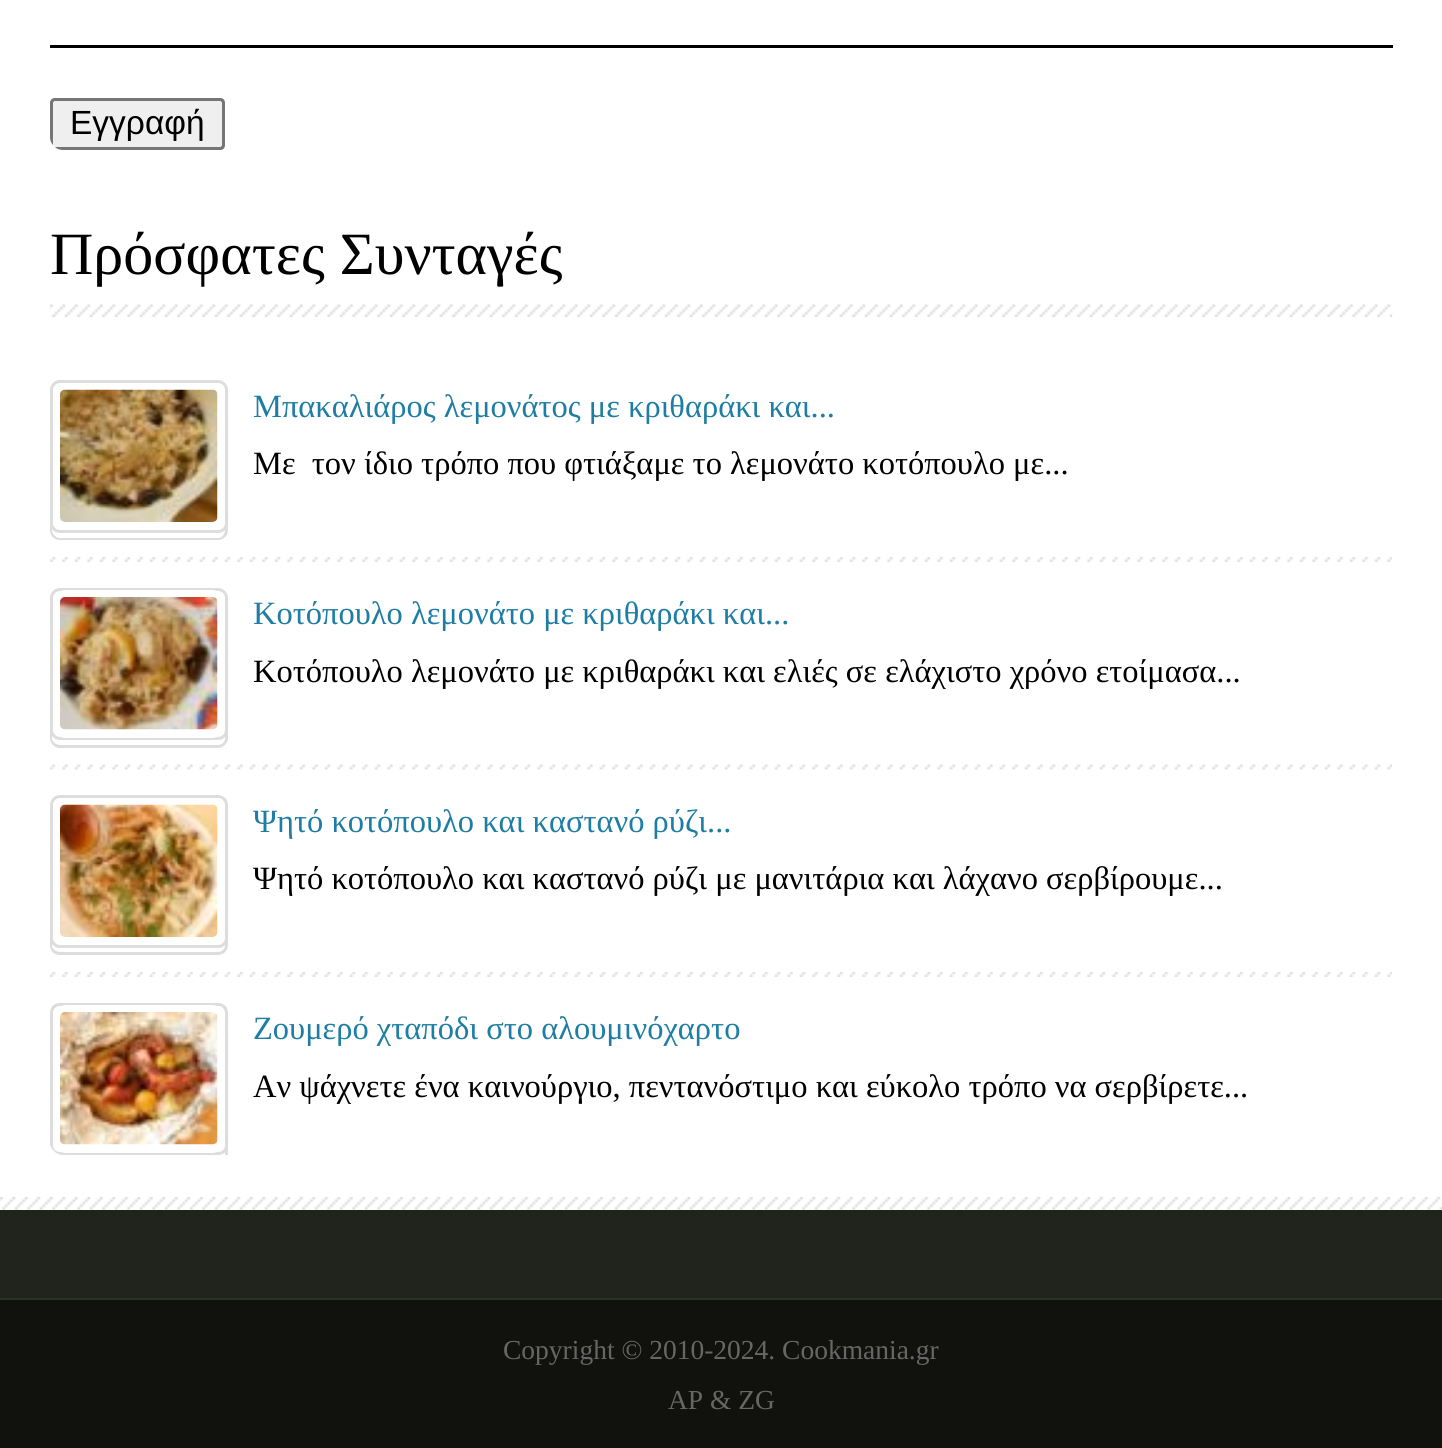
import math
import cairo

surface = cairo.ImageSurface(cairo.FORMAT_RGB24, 1442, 1448)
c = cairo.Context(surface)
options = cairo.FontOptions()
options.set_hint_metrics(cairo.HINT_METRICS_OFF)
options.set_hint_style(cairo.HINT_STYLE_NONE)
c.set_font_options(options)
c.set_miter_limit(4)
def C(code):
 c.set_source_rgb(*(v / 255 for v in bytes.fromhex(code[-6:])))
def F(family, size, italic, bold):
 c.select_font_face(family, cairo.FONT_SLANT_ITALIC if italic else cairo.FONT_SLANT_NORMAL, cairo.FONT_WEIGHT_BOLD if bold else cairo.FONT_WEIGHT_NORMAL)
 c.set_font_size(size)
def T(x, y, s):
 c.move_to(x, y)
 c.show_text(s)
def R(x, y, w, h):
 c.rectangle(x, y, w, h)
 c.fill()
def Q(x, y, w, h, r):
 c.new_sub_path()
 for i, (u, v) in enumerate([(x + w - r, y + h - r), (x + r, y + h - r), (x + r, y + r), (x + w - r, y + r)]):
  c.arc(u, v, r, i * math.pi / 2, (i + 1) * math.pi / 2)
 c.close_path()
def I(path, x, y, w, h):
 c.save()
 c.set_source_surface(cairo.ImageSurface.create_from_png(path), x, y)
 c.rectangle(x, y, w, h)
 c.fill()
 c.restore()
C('ffffff')
c.paint()
C('000000')
R(50,45,1343,3)
C('efefef')
c.new_path()
c.move_to(55,98)
c.line_to(220,98)
c.curve_to(223,98,225,100,225,103)
c.line_to(225,145)
c.curve_to(225,148,223,150,220,150)
c.line_to(63,150)
c.curve_to(56,150,50,144,50,137)
c.line_to(50,103)
c.curve_to(50,100,52,98,55,98)
c.close_path()
c.fill()
C('767676')
c.new_path()
c.move_to(55,98)
c.curve_to(52,98,50,100,50,103)
c.line_to(50,137)
c.curve_to(50,140,51,143,53,145)
c.line_to(53,103)
c.curve_to(53,102,54,101,55,101)
c.line_to(220,101)
c.curve_to(221,101,222,102,222,103)
c.line_to(222,145)
c.curve_to(222,146,221,147,220,147)
c.line_to(55,147)
c.curve_to(57,149,60,150,63,150)
c.line_to(220,150)
c.curve_to(223,150,225,148,225,145)
c.line_to(225,103)
c.curve_to(225,100,223,98,220,98)
c.close_path()
c.fill()
F('Liberation Sans',33.5,0,0)
C('000000')
T(70,134,'Εγγραφή')
I('1.png',50,304,1343,13)
F('Liberation Serif',60,0,0)
T(50,274,'Πρόσφατες Συνταγές')
I('2.png',50,557,1343,5)
Q(51.5,381.5,175,150,8.5)
C('dddddd')
c.set_line_width(3)
c.stroke()
c.set_fill_rule(cairo.FILL_RULE_EVEN_ODD)
c.new_path()
c.move_to(60,512)
c.line_to(218,512)
c.curve_to(223,512,228,517,228,522)
c.line_to(228,530)
c.curve_to(228,536,223,540,218,540)
c.line_to(60,540)
c.curve_to(54,540,50,536,50,530)
c.line_to(50,522)
c.curve_to(50,517,54,512,60,512)
c.close_path()
c.move_to(60,512)
c.line_to(218,512)
c.curve_to(222,512,225,517,225,522)
c.line_to(225,530)
c.curve_to(225,534,222,538,218,538)
c.line_to(60,538)
c.curve_to(56,538,52,534,52,530)
c.line_to(52,522)
c.curve_to(52,517,56,512,60,512)
c.close_path()
c.fill()
C('ffffff')
Q(53,383,172,147,13)
c.fill()
I('3.png',60,389,158,133)
F('Liberation Serif',32.5,0,0)
C('1d7da3')
T(253,417,'Μπακαλιάρος λεμονάτος με κριθαράκι και...')
C('000000')
T(253,474,'Με  τον ίδιο τρόπο που φτιάξαμε το λεμονάτο κοτόπουλο με...')
I('4.png',50,764,1343,6)
Q(51.5,589.5,175,149,8.5)
C('dddddd')
c.stroke()
c.new_path()
c.move_to(60,720)
c.line_to(218,720)
c.curve_to(223,720,228,724,228,730)
c.line_to(228,738)
c.curve_to(228,743,223,748,218,748)
c.line_to(60,748)
c.curve_to(54,748,50,743,50,738)
c.line_to(50,730)
c.curve_to(50,724,54,720,60,720)
c.close_path()
c.move_to(60,720)
c.line_to(218,720)
c.curve_to(222,720,225,724,225,730)
c.line_to(225,738)
c.curve_to(225,742,222,745,218,745)
c.line_to(60,745)
c.curve_to(56,745,52,742,52,738)
c.line_to(52,730)
c.curve_to(52,724,56,720,60,720)
c.close_path()
c.fill()
C('ffffff')
Q(53,590,172,148,13)
c.fill()
I('5.png',60,597,158,133)
C('1d7da3')
T(253,624,'Κοτόπουλο λεμονάτο με κριθαράκι και...')
C('000000')
T(253,682,'Κοτόπουλο λεμονάτο με κριθαράκι και ελιές σε ελάχιστο χρόνο ετοίμασα...')
I('2.png',50,972,1343,5)
Q(51.5,796.5,175,150,8.5)
C('dddddd')
c.stroke()
c.new_path()
c.move_to(60,928)
c.line_to(218,928)
c.curve_to(223,928,228,932,228,938)
c.line_to(228,945)
c.curve_to(228,951,223,955,218,955)
c.line_to(60,955)
c.curve_to(54,955,50,951,50,945)
c.line_to(50,938)
c.curve_to(50,932,54,928,60,928)
c.close_path()
c.move_to(60,928)
c.line_to(218,928)
c.curve_to(222,928,225,932,225,938)
c.line_to(225,945)
c.curve_to(225,949,222,952,218,952)
c.line_to(60,952)
c.curve_to(56,952,52,949,52,945)
c.line_to(52,938)
c.curve_to(52,932,56,928,60,928)
c.close_path()
c.fill()
C('ffffff')
Q(53,798,172,147,13)
c.fill()
I('6.png',60,804,158,133)
C('1d7da3')
T(253,832,'Ψητό κοτόπουλο και καστανό ρύζι...')
C('000000')
T(253,889,'Ψητό κοτόπουλο και καστανό ρύζι με μανιτάρια και λάχανο σερβίρουμε...')
C('dddddd')
c.new_path()
c.move_to(60,1003)
c.curve_to(54,1003,50,1007,50,1013)
c.line_to(50,1142)
c.curve_to(50,1149,56,1155,63,1155)
c.line_to(218,1155)
c.curve_to(224,1155,228,1151,228,1145)
c.line_to(228,1013)
c.curve_to(228,1007,224,1003,218,1003)
c.close_path()
c.move_to(60,1006)
c.curve_to(56,1006,53,1009,53,1013)
c.line_to(53,1145)
c.curve_to(53,1149,56,1152,60,1152)
c.line_to(218,1152)
c.curve_to(222,1152,225,1149,225,1145)
c.line_to(225,1013)
c.curve_to(225,1009,222,1006,218,1006)
c.close_path()
c.fill()
c.new_path()
c.move_to(228,1155)
c.line_to(228,1149)
c.curve_to(228,1142,227,1135,218,1135)
c.curve_to(226,1135,226,1149,225,1155)
c.close_path()
c.move_to(60,1135)
c.curve_to(53,1135,52,1144,52,1149)
c.curve_to(48,1142,52,1135,60,1135)
c.close_path()
c.fill()
C('ffffff')
Q(53,1005,172,148,13)
c.fill()
I('7.png',60,1012,158,133)
C('1d7da3')
T(253,1039,'Ζουμερό χταπόδι στο αλουμινόχαρτο')
C('000000')
T(253,1097,'Αν ψάχνετε ένα καινούργιο, πεντανόστιμο και εύκολο τρόπο να σερβίρετε...')
I('8.png',0,1197,1442,13)
C('21241c')
R(0,1210,1442,88)
C('2c3026')
R(0,1298,1442,2)
C('11120e')
R(0,1300,1442,148)
F('Liberation Serif',27.5,0,0)
C('666666')
T(503,1359,'Copyright © 2010-2024. Cookmania.gr')
T(668,1409,'AP & ZG')
surface.write_to_png('o.png')
